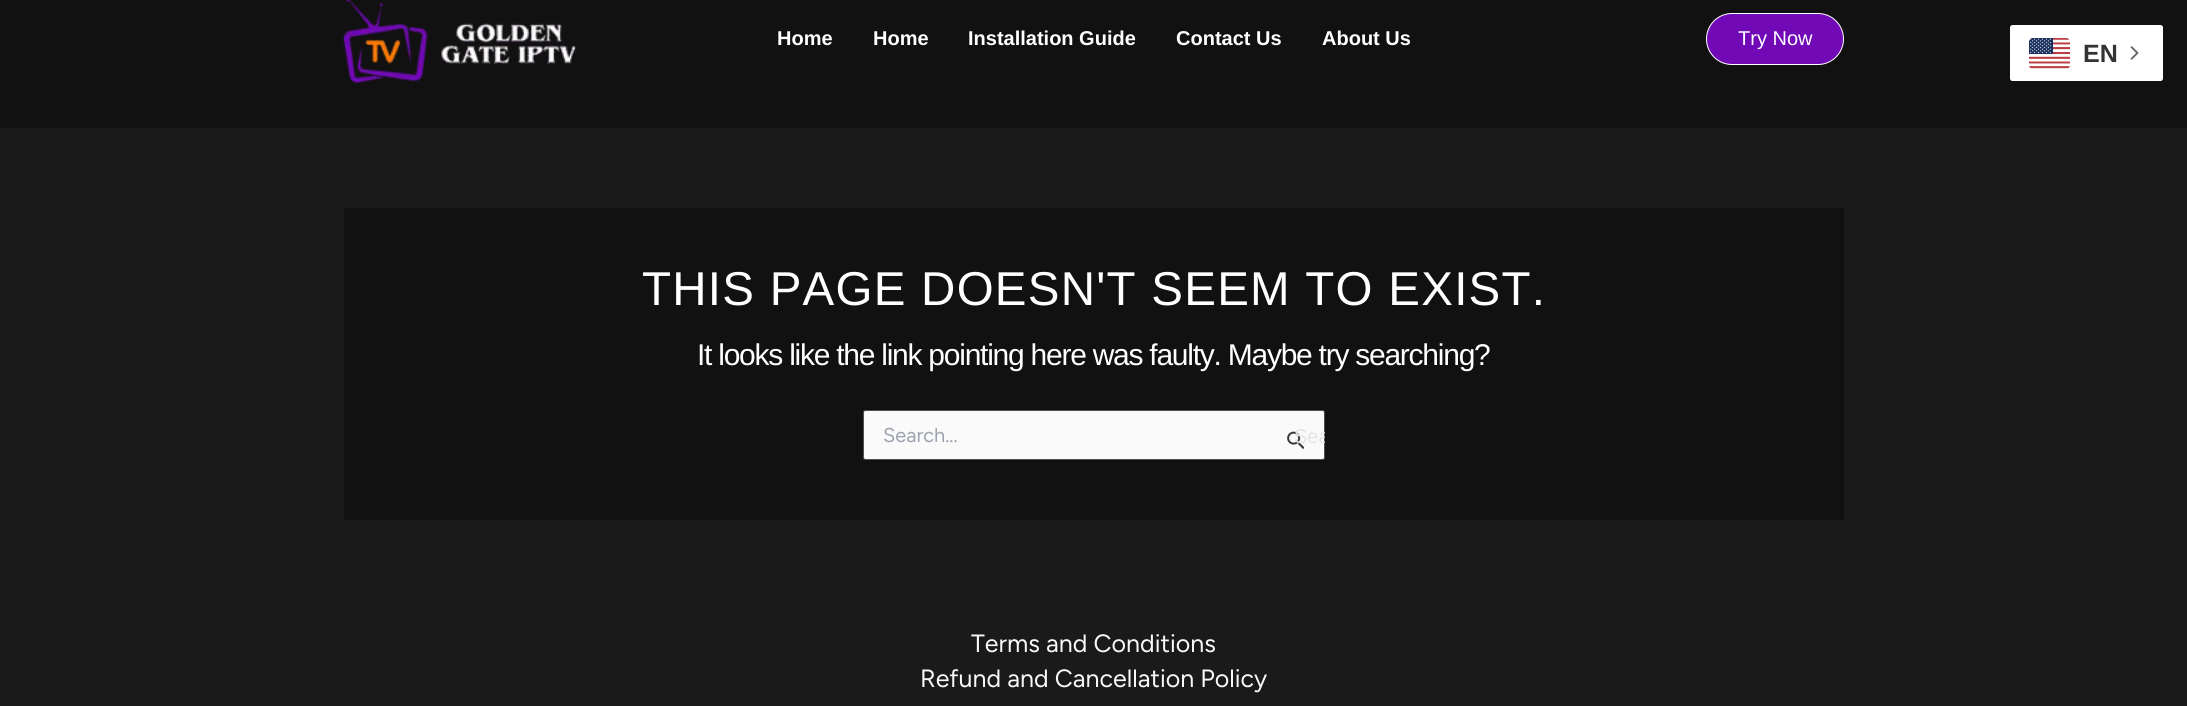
import math
import cairo

surface = cairo.ImageSurface(cairo.FORMAT_RGB24, 2187, 706)
c = cairo.Context(surface)
options = cairo.FontOptions()
options.set_hint_metrics(cairo.HINT_METRICS_OFF)
options.set_hint_style(cairo.HINT_STYLE_NONE)
c.set_font_options(options)
c.set_miter_limit(4)
def C(code):
 c.set_source_rgb(*(v / 255 for v in bytes.fromhex(code[-6:])))
def F(family, size, italic, bold):
 c.select_font_face(family, cairo.FONT_SLANT_ITALIC if italic else cairo.FONT_SLANT_NORMAL, cairo.FONT_WEIGHT_BOLD if bold else cairo.FONT_WEIGHT_NORMAL)
 c.set_font_size(size)
def T(x, y, s):
 c.move_to(x, y)
 c.show_text(s)
def L(x, y, s, letter, word):
 c.move_to(x, y)
 for ch in s:
  c.show_text(ch)
  c.rel_move_to(letter + word * (ch == ' '), 0)
def R(x, y, w, h):
 c.rectangle(x, y, w, h)
 c.fill()
def Q(x, y, w, h, r):
 c.new_sub_path()
 for i, (u, v) in enumerate([(x + w - r, y + h - r), (x + r, y + h - r), (x + r, y + r), (x + w - r, y + r)]):
  c.arc(u, v, r, i * math.pi / 2, (i + 1) * math.pi / 2)
 c.close_path()
def I(path, x, y, w, h):
 c.save()
 c.set_source_surface(cairo.ImageSurface.create_from_png(path), x, y)
 c.rectangle(x, y, w, h)
 c.fill()
 c.restore()
C('1a1a1a')
c.paint()
C('111111')
R(0,0,2187,128)
I('1.png',343,0,234,83)
F('Liberation Sans',20,0,1)
C('ffffff')
T(777,45,'Home')
T(873,45,'Home')
T(968,45,'Installation Guide')
T(1176,45,'Contact Us')
T(1322,45,'About Us')
C('7209b7')
Q(1706.5,13.5,137,51,25.5)
c.fill_preserve()
C('ffffff')
c.set_line_width(1)
c.stroke()
F('Liberation Sans',20,0,0)
T(1738,45,'Try Now')
C('111111')
R(344,208,1500,312)
F('Liberation Sans',47.5,0,0)
C('ffffff')
L(642,305,'THIS PAGE DOESN\'T SEEM TO EXIST.',1.25,0)
F('Liberation Sans',30,0,0)
L(697,365,'It looks like the link pointing here was faulty. Maybe try searching?',-1.25,0)
C('fafafa')
Q(863.5,410.5,461,49,2)
c.fill_preserve()
C('4f4f4f')
c.stroke()
F('Figtree Light',20,0,0)
C('9ca3af')
T(883,442,'Search...')
I('2.png',1287,431,17,18)
c.save()
Q(1269,410,56,53,2.5)
c.clip()
F('Liberation Sans',20,0,0)
C('e5e5e5')
T(1294,443,'Sea')
c.restore()
F('Figtree Light',25,0,0)
C('f8f8f8')
T(971,652,'Terms and Conditions')
T(920,687,'Refund and Cancellation Policy')
C('ffffff')
Q(2010,25,153,56,2.5)
c.fill()
I('3.png',2029,38,41,31)
F('Liberation Sans',25,0,1)
C('333333')
T(2083,62,'EN')
I('4.png',2130,46,9,14)
surface.write_to_png('o.png')
